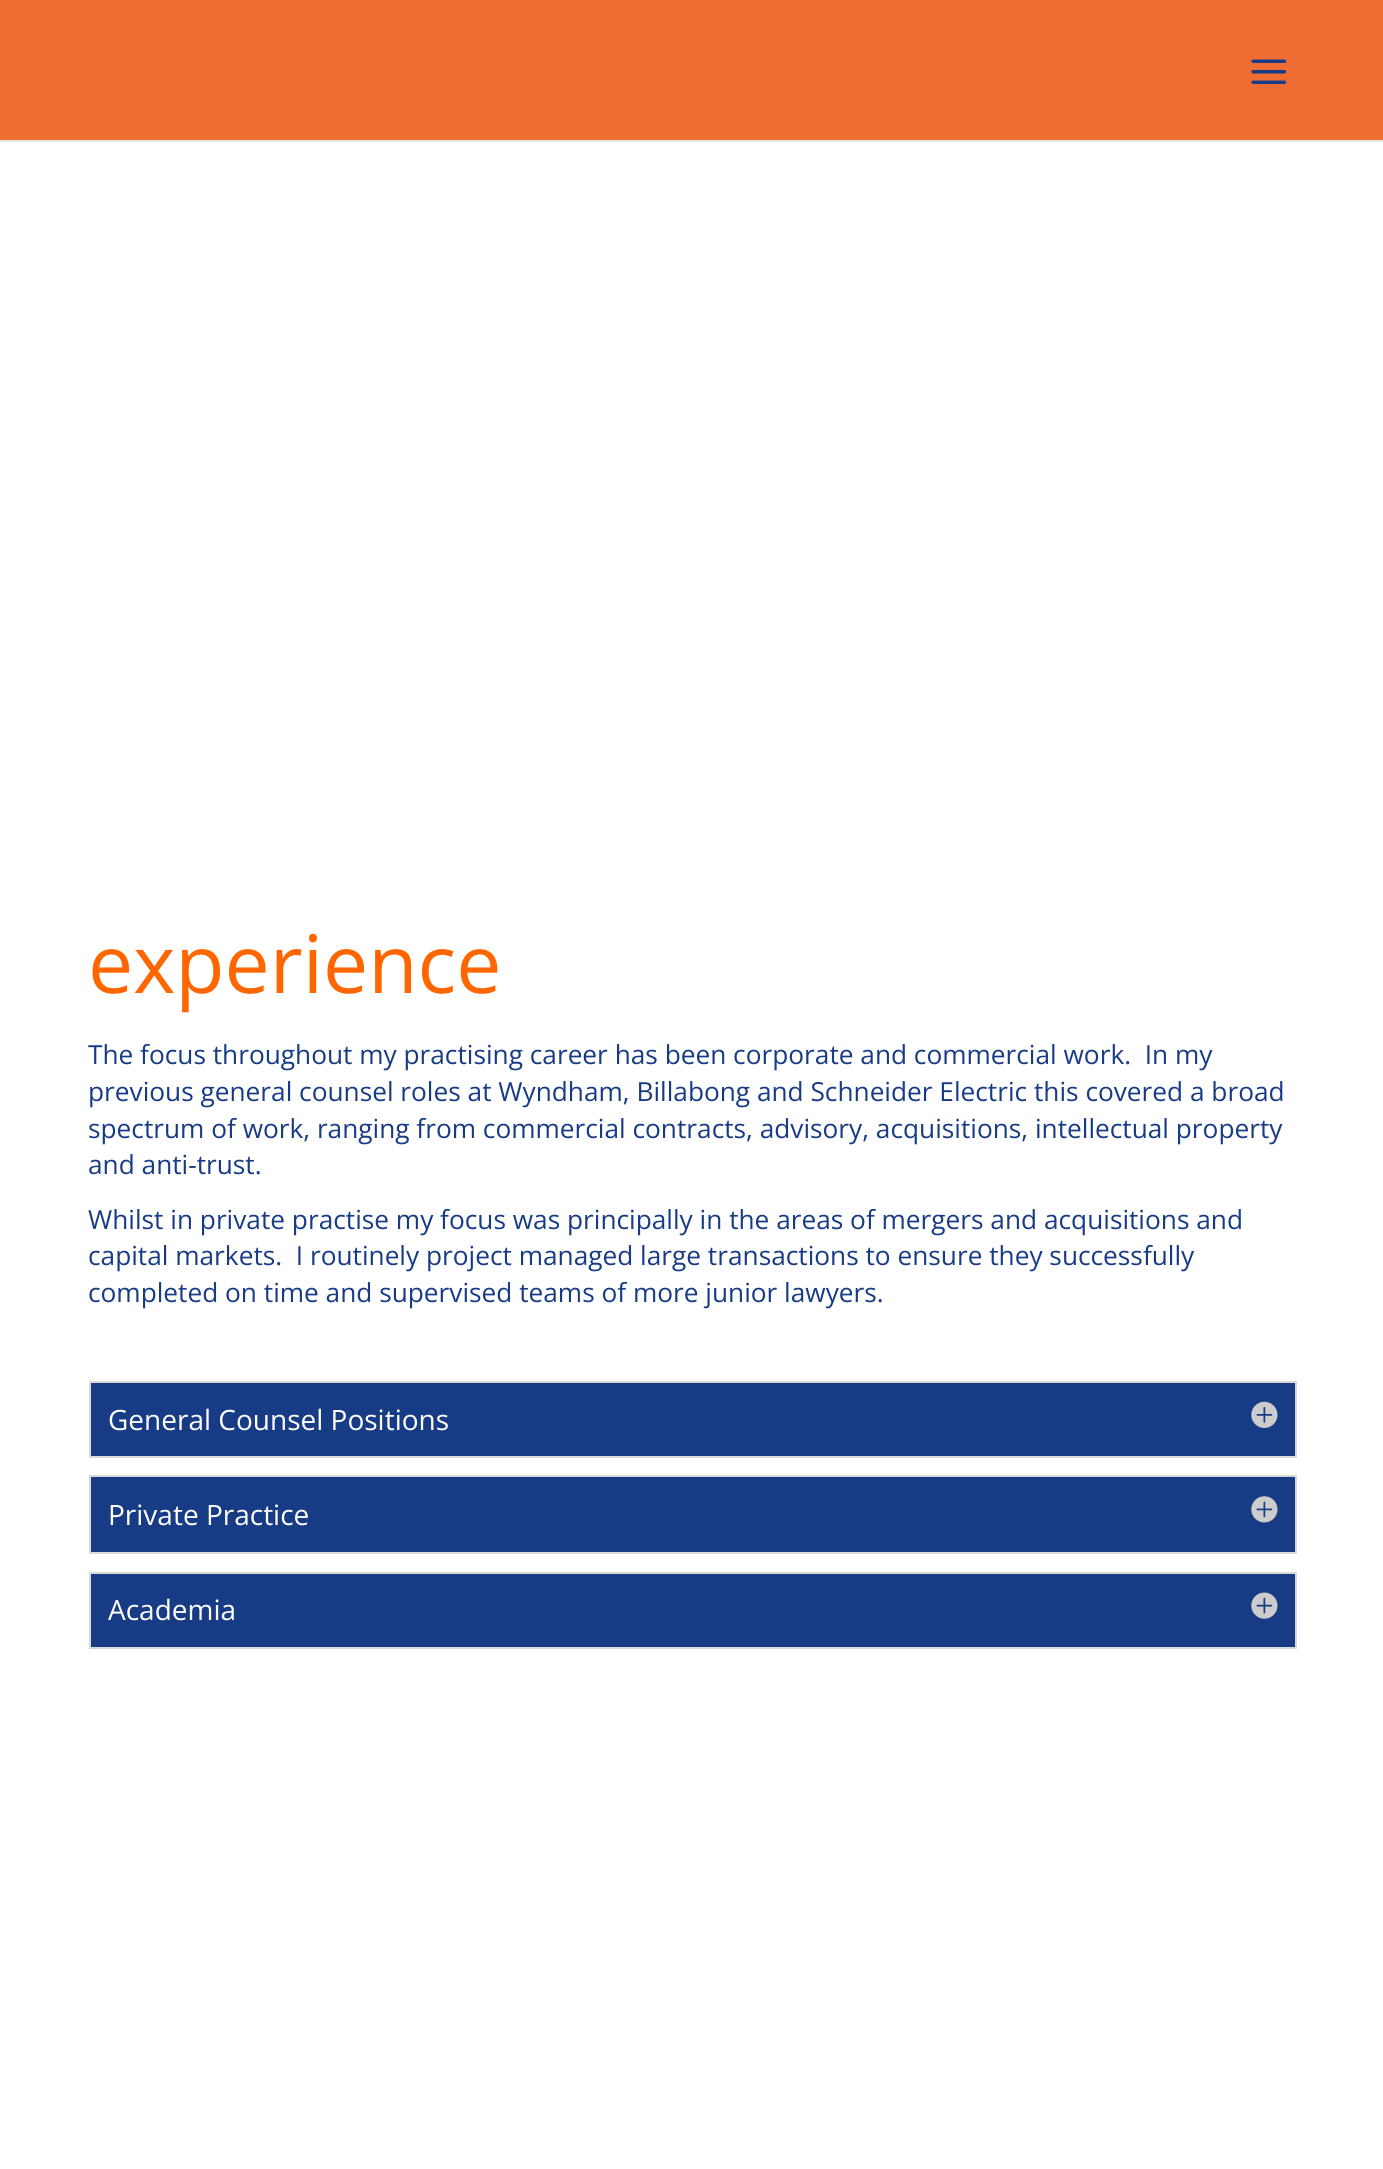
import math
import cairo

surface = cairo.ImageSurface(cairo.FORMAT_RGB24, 1383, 2169)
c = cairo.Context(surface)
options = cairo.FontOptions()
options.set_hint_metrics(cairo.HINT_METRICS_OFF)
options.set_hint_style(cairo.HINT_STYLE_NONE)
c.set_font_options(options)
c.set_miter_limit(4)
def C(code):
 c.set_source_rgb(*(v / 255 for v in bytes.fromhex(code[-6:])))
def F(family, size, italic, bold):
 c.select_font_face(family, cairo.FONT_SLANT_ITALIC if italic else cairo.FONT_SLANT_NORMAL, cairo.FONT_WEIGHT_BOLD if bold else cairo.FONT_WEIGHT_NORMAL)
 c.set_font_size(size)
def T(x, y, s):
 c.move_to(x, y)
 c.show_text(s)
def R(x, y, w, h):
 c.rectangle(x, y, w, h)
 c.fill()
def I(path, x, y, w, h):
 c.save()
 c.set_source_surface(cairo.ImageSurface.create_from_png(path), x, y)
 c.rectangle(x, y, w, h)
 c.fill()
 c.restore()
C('ffffff')
c.paint()
C('e6e6e6')
R(0,140,1383,2)
C('ef6c33')
R(0,0,1383,140)
I('1.png',1251,59,36,25)
F('Open Sans',80.5,0,0)
C('ff6600')
T(88,993,'experience')
F('Open Sans',26.25,0,0)
C('173b85')
T(88,1064,'The focus throughout my practising career has been corporate and commercial work.  In my')
T(88,1101,'previous general counsel roles at Wyndham, Billabong and Schneider Electric this covered a broad')
T(88,1138,'spectrum of work, ranging from commercial contracts, advisory, acquisitions, intellectual property')
T(88,1174,'and anti-trust.')
T(88,1229,'Whilst in private practise my focus was principally in the areas of mergers and acquisitions and')
T(88,1265,'capital markets.  I routinely project managed large transactions to ensure they successfully')
T(88,1302,'completed on time and supervised teams of more junior lawyers.')
c.rectangle(90,1382,1206,75)
c.fill_preserve()
C('d9d9d9')
c.stroke()
F('Open Sans',28,0,0)
C('ffffff')
T(108,1430,'General Counsel Positions')
I('2.png',1251,1401,27,27)
C('173b85')
c.rectangle(90,1476,1206,77)
c.fill_preserve()
C('d9d9d9')
c.stroke()
C('ffffff')
T(108,1525,'Private Practice')
I('3.png',1251,1496,27,27)
C('173b85')
c.rectangle(90,1573,1206,75)
c.fill_preserve()
C('d9d9d9')
c.stroke()
C('ffffff')
T(108,1620,'Academia')
I('4.png',1251,1592,27,27)
surface.write_to_png('o.png')
